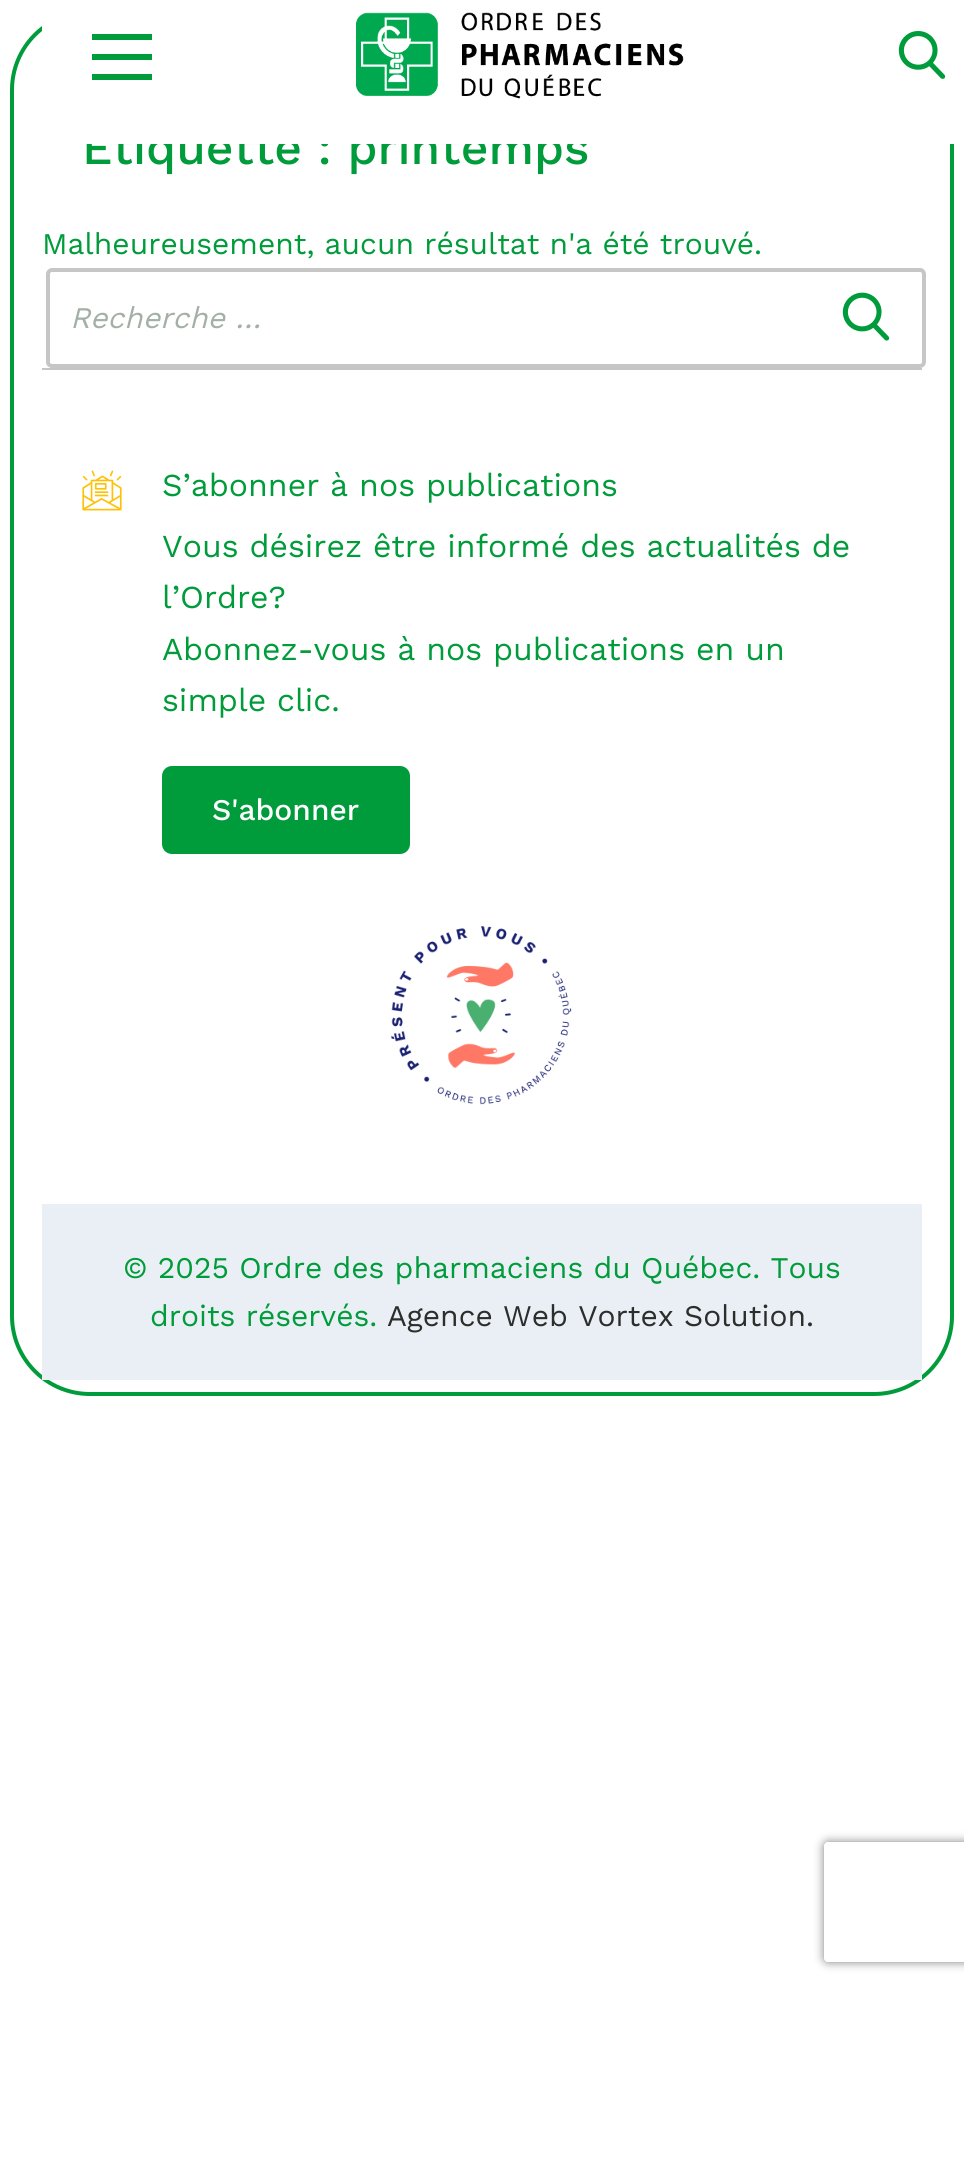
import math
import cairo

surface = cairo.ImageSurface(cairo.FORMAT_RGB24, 964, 2162)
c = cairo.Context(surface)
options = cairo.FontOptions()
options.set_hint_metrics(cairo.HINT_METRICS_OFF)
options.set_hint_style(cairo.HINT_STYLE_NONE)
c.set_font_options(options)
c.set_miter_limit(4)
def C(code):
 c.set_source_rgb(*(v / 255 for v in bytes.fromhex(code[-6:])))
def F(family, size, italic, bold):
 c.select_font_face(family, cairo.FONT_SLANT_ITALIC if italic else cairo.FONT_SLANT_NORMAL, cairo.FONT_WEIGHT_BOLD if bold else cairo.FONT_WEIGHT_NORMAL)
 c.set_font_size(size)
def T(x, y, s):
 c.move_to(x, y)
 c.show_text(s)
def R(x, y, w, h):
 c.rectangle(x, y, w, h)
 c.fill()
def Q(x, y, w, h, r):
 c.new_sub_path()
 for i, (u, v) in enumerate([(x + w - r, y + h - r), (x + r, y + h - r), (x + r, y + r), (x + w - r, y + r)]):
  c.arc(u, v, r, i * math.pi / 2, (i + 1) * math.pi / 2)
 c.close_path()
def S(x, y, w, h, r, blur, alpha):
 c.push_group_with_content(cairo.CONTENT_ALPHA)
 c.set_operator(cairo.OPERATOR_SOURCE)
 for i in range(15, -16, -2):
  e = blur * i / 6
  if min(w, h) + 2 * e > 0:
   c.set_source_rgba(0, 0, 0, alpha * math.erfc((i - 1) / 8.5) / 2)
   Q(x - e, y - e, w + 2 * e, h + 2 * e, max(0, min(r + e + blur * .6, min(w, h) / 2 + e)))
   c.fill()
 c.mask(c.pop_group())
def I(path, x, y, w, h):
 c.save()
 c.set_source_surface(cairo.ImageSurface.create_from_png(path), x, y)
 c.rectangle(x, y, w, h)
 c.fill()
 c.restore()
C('ffffff')
c.paint()
Q(12,12,940,1382,78)
C('009b3a')
c.set_line_width(4)
c.stroke()
F('Work Sans Medium',48,0,0)
T(82,164,'Étiquette : printemps')
C('ffffff')
R(42,10,912,134)
C('009b3a')
R(92,54,60,6)
R(92,34,60,6)
R(92,74,60,6)
I('1.png',356,12,328,87)
I('2.png',898,31,48,48)
F('Work Sans',30,0,0)
T(42,254,'Malheureusement, aucun résultat n\'a été trouvé.')
Q(48,270,876,96,4)
C('c6c6c6')
c.stroke()
F('Work Sans',30,1,0)
C('a3b0a6')
T(70,328,'Recherche …')
I('3.png',842,292,48,49)
C('c6c6c6')
R(42,368,880,2)
I('4.png',82,470,40,41)
F('Work Sans',32,0,0)
C('009b3a')
T(162,496,'S’abonner à nos publications')
T(162,557,'Vous désirez être informé des actualités de')
T(162,608,'l’Ordre?')
T(162,660,'Abonnez-vous à nos publications en un')
T(162,711,'simple clic.')
Q(162,766,248,88,10)
c.fill()
F('Work Sans Medium',30,0,0)
C('ffffff')
T(212,820,'S\'abonner')
I('5.png',390,926,182,179)
C('e9eff4')
R(42,1204,880,176)
F('Work Sans',30,0,0)
C('009b3a')
T(123,1278,'© 2025 Ordre des pharmaciens du Québec. Tous')
T(150,1326,'droits réservés.')
C('2b2f2c')
T(387,1326,'Agence Web Vortex Solution.')
c.save()
c.set_fill_rule(cairo.FILL_RULE_EVEN_ODD)
c.new_path()
c.move_to(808,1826)
c.line_to(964,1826)
c.line_to(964,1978)
c.line_to(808,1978)
c.close_path()
c.move_to(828,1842)
c.line_to(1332,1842)
c.curve_to(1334,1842,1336,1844,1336,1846)
c.line_to(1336,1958)
c.curve_to(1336,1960,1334,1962,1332,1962)
c.line_to(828,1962)
c.curve_to(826,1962,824,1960,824,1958)
c.line_to(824,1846)
c.curve_to(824,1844,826,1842,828,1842)
c.close_path()
c.clip()
C('808080')
S(824,1842,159,120,4,5,1)
c.restore()
surface.write_to_png('o.png')
